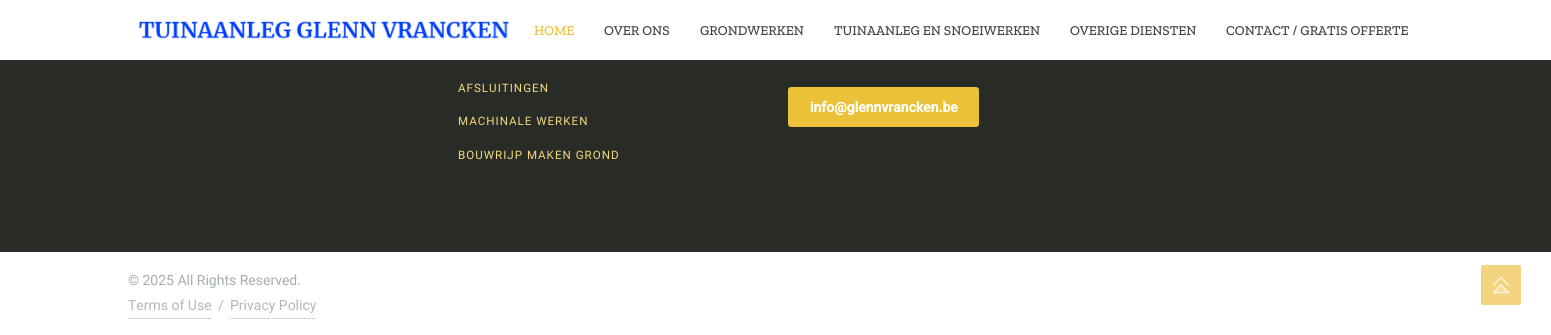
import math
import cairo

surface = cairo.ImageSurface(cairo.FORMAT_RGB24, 1551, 335)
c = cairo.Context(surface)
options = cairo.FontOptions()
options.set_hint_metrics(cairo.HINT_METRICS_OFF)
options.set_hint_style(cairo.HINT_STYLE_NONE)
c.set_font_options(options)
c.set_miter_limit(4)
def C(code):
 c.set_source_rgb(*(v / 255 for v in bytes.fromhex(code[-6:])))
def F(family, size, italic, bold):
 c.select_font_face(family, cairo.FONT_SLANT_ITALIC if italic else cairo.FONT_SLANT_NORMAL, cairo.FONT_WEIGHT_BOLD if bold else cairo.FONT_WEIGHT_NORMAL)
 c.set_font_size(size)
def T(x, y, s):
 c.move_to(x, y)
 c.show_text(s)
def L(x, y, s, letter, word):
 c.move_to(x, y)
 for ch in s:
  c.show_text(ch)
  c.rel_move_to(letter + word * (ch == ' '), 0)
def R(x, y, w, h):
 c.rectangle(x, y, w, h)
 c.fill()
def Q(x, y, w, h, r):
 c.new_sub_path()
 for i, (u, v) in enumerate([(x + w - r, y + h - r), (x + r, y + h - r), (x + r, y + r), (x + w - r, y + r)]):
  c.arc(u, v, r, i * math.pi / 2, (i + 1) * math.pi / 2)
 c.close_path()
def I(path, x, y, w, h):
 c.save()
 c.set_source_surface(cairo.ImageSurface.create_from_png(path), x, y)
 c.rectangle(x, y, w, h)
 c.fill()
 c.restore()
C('282b26')
c.paint()
C('ffffff')
R(0,0,1551,60)
I('1.png',138,21,372,18)
F('Zilla Slab Medium',13.6,0,0)
C('ebc237')
T(534,35,'HOME')
C('444444')
T(604,35,'OVER ONS')
T(700,35,'GRONDWERKEN')
T(834,35,'TUINAANLEG EN SNOEIWERKEN')
T(1070,35,'OVERIGE DIENSTEN')
T(1226,35,'CONTACT / GRATIS OFFERTE')
F('Roboto',11.6,0,0)
C('f2d87f')
L(458,92,'AFSLUITINGEN',1,0)
L(458,125,'MACHINALE WERKEN',1,0)
L(458,159,'BOUWRIJP MAKEN GROND',1,0)
C('ebc237')
Q(788,87,191,40,3)
c.fill()
F('Roboto',14,0,1)
C('ffffff')
T(810,112,'info@glennvrancken.be')
R(0,252,1551,83)
F('Roboto',14,0,0)
C('a3aead')
T(128,285,'© 2025 All Rights Reserved.')
c.new_path()
c.move_to(128,318.5)
c.line_to(211,318.5)
C('b4b4b4')
c.set_line_width(1)
c.set_dash([1,1])
c.stroke()
C('b6b6b6')
T(128,310,'Terms of Use')
T(218,310,'/')
c.new_path()
c.move_to(230,318.5)
c.line_to(316,318.5)
C('b4b4b4')
c.stroke()
C('b6b6b6')
T(230,310,'Privacy Policy')
C('f4d57f')
Q(1481,265,40,40,2)
c.fill()
I('2.png',1489,273,24,24)
surface.write_to_png('o.png')
